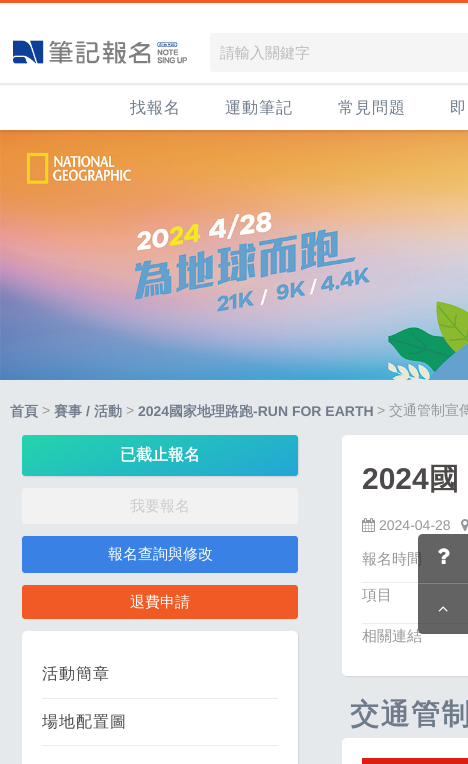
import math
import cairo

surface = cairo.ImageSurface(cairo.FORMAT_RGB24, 468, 764)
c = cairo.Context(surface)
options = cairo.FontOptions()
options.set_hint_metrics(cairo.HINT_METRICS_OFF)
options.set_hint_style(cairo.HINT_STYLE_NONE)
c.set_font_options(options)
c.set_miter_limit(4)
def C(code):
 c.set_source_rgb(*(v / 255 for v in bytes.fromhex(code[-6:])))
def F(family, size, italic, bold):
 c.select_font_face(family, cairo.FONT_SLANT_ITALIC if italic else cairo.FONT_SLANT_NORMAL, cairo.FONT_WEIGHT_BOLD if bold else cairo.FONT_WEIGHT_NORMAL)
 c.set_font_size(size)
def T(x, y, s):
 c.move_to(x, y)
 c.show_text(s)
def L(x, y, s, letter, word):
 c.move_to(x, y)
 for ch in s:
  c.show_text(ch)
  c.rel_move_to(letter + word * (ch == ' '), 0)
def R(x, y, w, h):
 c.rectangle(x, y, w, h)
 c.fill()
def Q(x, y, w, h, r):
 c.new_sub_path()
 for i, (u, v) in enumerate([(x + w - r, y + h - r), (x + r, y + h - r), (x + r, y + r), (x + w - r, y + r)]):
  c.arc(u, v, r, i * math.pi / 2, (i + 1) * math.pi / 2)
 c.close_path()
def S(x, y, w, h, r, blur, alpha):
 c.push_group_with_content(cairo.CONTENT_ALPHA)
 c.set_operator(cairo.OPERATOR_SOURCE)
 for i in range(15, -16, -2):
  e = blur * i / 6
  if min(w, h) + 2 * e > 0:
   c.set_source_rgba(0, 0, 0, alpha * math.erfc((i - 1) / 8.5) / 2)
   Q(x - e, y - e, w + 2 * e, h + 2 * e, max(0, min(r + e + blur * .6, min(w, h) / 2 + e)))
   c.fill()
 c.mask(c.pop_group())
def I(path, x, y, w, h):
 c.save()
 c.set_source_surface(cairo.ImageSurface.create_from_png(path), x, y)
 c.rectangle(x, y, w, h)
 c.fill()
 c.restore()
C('e5e9ec')
c.paint()
I('2.png',0,130,468,250)
C('000000')
S(0,2,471,130,0,1,.1)
C('ffffff')
R(0,3,468,127)
C('f15a24')
R(0,0,468,3)
c.save()
c.rectangle(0,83,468,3)
c.clip()
C('000000')
S(0,5,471,80,0,1,.1)
c.restore()
I('1.png',13,40,174,24)
C('f5f5f5')
Q(210,33,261,39,3)
c.fill()
F('WenQuanYi Zen Hei Medium',15,0,0)
C('bbbbbb')
T(220,58,'請輸入關鍵字')
F('WenQuanYi Zen Hei Medium',16,0,0)
C('6f7b8a')
L(130,113,'找報名',1,0)
L(225,113,'運動筆記',1,0)
L(338,113,'常見問題',1,0)
L(450,113,'即',1,0)
F('WenQuanYi Zen Hei',14,0,1)
T(10,416,'首頁')
F('Liberation Sans',14,0,0)
C('95989a')
T(42,415,'>')
F('WenQuanYi Zen Hei',14,0,1)
C('6f7b8a')
T(54,416,'賽事')
F('Liberation Sans',14,0,1)
T(86,416,'/')
F('WenQuanYi Zen Hei',14,0,1)
T(94,416,'活動')
F('Liberation Sans',14,0,0)
C('95989a')
T(126,415,'>')
F('Liberation Sans',14,0,1)
C('6f7b8a')
T(138,416,'2024')
F('WenQuanYi Zen Hei',14,0,1)
T(169,416,'國家地理路跑')
F('Liberation Sans',14,0,1)
T(253,416,'-RUN FOR EARTH')
F('Liberation Sans',14,0,0)
C('95989a')
T(377,415,'>')
F('WenQuanYi Zen Hei Medium',14,0,0)
T(389,415,'交通管制宣傳')
C('22262e')
S(23,436,276,41,3,.5,.1)
gradient = cairo.LinearGradient(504,684,368,309)
gradient.add_color_stop_rgba(0,0.933,0.467,0.322,1)
gradient.add_color_stop_rgba(.33,0.906,0.235,0.494,1)
gradient.add_color_stop_rgba(.67,0.137,0.651,0.835,1)
gradient.add_color_stop_rgba(1,0.137,0.835,0.671,1)
c.set_source(gradient)
Q(22,435,276,41,3)
c.fill()
F('WenQuanYi Zen Hei',16,0,1)
C('ffffff')
T(120,460,'已截止報名')
C('f2f2f2')
Q(22.5,488.5,275,35,2.5)
c.fill_preserve()
c.set_line_width(1)
c.stroke()
F('WenQuanYi Zen Hei Medium',15,0,0)
C('cccccc')
T(130,511,'我要報名')
C('3a81e6')
Q(22.5,536.5,275,36,2.5)
c.fill_preserve()
c.stroke()
C('ffffff')
T(108,559,'報名查詢與修改')
C('f15a24')
Q(22,585,276,34,3)
c.fill()
C('ffffff')
T(130,607,'退費申請')
C('22262e')
S(23,632,276,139,5,.5,.1)
C('ffffff')
Q(22,631,276,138,5)
c.fill()
F('WenQuanYi Zen Hei Medium',16,0,0)
C('4c4948')
L(42,679,'活動簡章',1,0)
C('eaecf1')
R(42,698,236,1)
C('4c4948')
L(42,727,'場地配置圖',1,0)
C('eaecf1')
R(42,745,236,1)
C('22262e')
S(343,436,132,241,5,.5,.1)
C('ffffff')
Q(342,435,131,241,5)
c.fill()
F('Liberation Sans',30,0,1)
C('4c4948')
T(362,489,'2024')
F('WenQuanYi Zen Hei',30,0,1)
T(429,489,'國')
I('3.png',362,518,13,14)
F('Liberation Sans',14,0,0)
C('95989a')
T(379,530,'2024-04-28')
I('4.png',461,519,7,12)
F('WenQuanYi Zen Hei Medium',15,0,0)
T(362,564,'報名時間')
C('eaecf1')
R(362,582,106,1)
C('95989a')
T(362,600,'項目')
C('eaecf1')
R(362,623,106,1)
C('95989a')
T(362,641,'相關連結')
F('WenQuanYi Zen Hei',29,0,1)
C('6f7b8a')
L(350,724,'交通管制',1.5,0)
C('ffffff')
Q(342,738,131,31,5)
c.fill()
C('de1c13')
R(362,758,106,6)
c.set_source_rgba(0.133,0.133,0.133,0.7)
c.new_path()
c.move_to(423,534)
c.line_to(468,534)
c.line_to(468,634)
c.line_to(423,634)
c.curve_to(420,634,418,632,418,629)
c.line_to(418,539)
c.curve_to(418,536,420,534,423,534)
c.close_path()
c.fill()
C('838383')
R(418,583,50,1)
I('5.png',438,548,12,16)
I('6.png',438,606,10,6)
surface.write_to_png('o.png')
